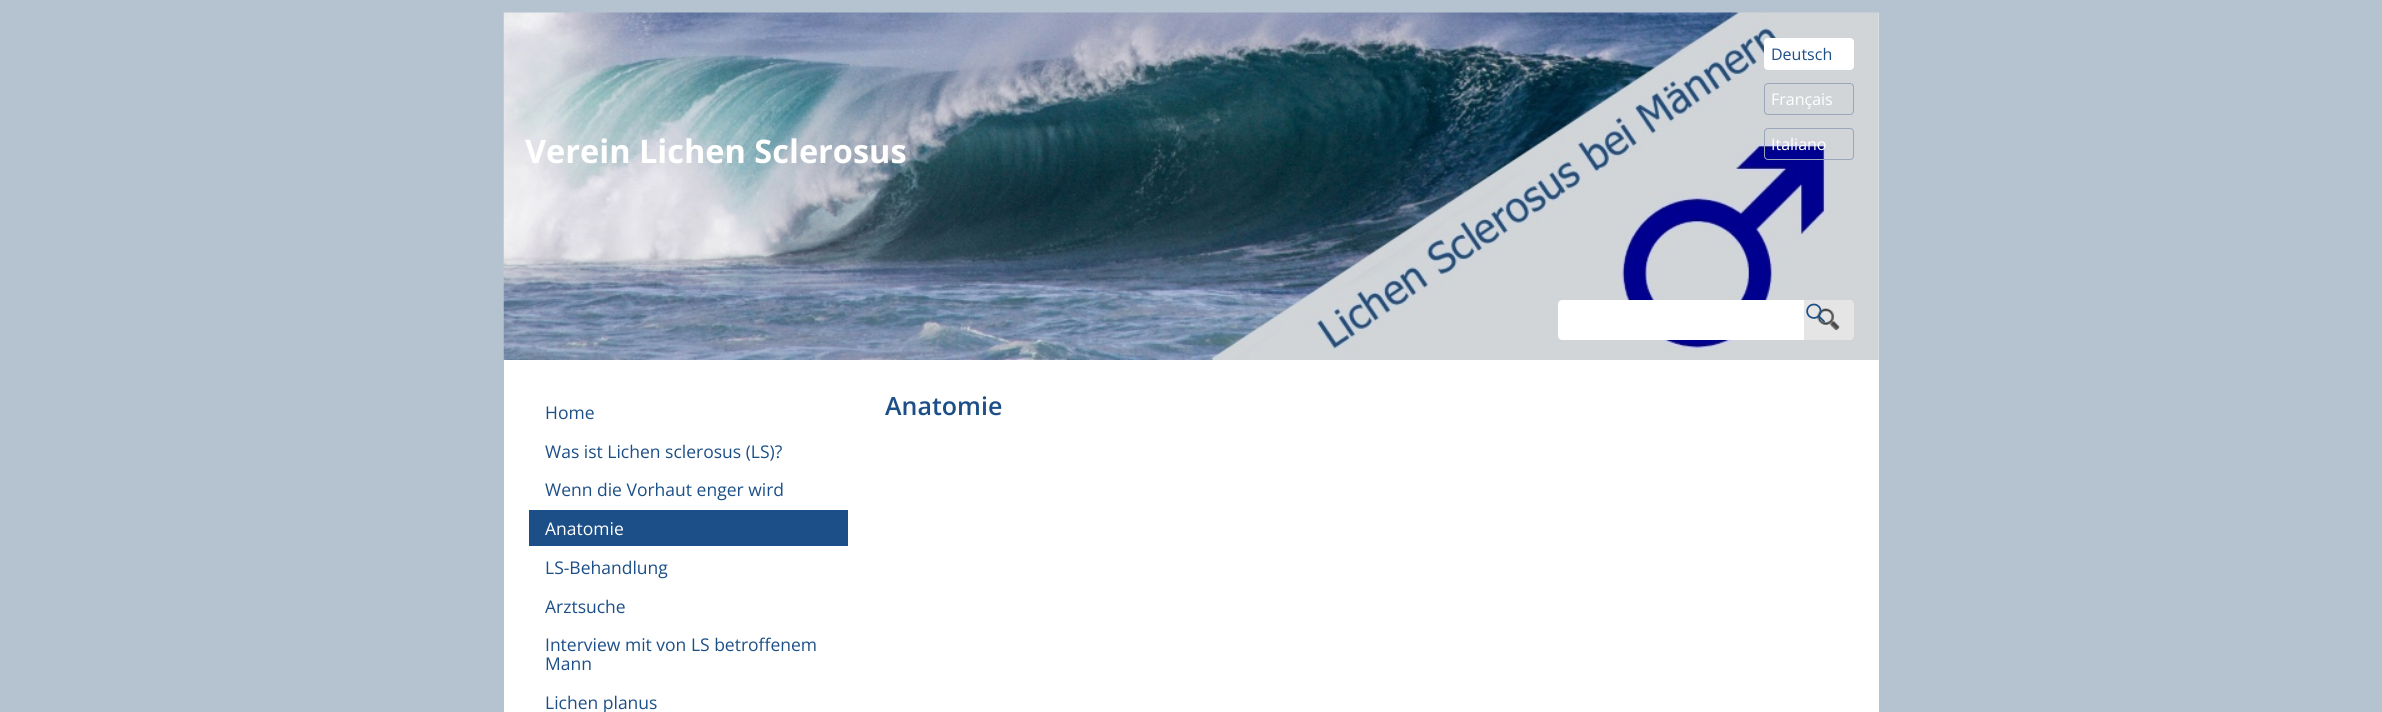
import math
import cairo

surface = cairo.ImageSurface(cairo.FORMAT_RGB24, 2382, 712)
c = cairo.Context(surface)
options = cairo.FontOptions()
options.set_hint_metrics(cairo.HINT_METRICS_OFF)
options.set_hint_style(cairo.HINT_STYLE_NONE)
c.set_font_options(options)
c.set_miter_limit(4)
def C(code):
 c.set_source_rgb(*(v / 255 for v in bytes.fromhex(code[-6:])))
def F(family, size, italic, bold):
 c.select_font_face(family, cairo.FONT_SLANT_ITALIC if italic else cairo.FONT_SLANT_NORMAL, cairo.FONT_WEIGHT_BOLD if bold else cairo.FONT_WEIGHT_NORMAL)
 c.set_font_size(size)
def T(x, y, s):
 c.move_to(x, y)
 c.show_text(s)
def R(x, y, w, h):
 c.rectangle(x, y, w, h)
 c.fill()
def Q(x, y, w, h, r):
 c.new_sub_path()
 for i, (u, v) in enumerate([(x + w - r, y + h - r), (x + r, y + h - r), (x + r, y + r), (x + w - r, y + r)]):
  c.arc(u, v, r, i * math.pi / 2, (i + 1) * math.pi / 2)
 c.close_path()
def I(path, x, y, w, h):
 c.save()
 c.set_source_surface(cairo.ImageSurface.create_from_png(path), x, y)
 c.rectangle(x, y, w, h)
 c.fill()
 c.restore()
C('b5c3d1')
c.paint()
C('ffffff')
R(504,13,1375,699)
I('1.png',503,12,1376,348)
F('Open Sans',32.5,0,1)
T(525,163,'Verein Lichen Sclerosus')
Q(1764.5,38.5,89,31,3.5)
c.fill_preserve()
c.set_line_width(1)
c.stroke()
F('Open Sans',16,0,0)
C('1c4f87')
T(1771,60,'Deutsch')
Q(1764.5,83.5,89,31,3.5)
C('9aa6bc')
c.stroke()
C('ffffff')
T(1771,105,'Français')
Q(1764.5,128.5,89,31,3.5)
C('9aa6bc')
c.stroke()
C('ffffff')
T(1771,150,'Italiano')
c.new_path()
c.move_to(1562,300)
c.line_to(1816,300)
c.line_to(1816,340)
c.line_to(1562,340)
c.curve_to(1560,340,1558,338,1558,336)
c.line_to(1558,304)
c.curve_to(1558,302,1560,300,1562,300)
c.close_path()
c.fill()
C('e5e5e5')
c.new_path()
c.move_to(1804,300)
c.line_to(1850,300)
c.curve_to(1852,300,1854,302,1854,304)
c.line_to(1854,336)
c.curve_to(1854,338,1852,340,1850,340)
c.line_to(1804,340)
c.close_path()
c.fill()
I('2.png',1817,308,23,23)
I('3.png',1806,303,19,20)
F('Open Sans',17.5,0,0)
C('1c4f87')
T(545,419,'Home')
T(545,458,'Was ist Lichen sclerosus (LS)?')
T(545,496,'Wenn die Vorhaut enger wird')
R(529,510,319,36)
C('ffffff')
T(545,535,'Anatomie')
C('1c4f87')
T(545,574,'LS-Behandlung')
T(545,613,'Arztsuche')
T(545,651,'Interview mit von LS betroffenem')
T(545,670,'Mann')
T(545,709,'Lichen planus')
F('Open Sans SemiBold',25,0,0)
T(885,415,'Anatomie')
surface.write_to_png('o.png')
